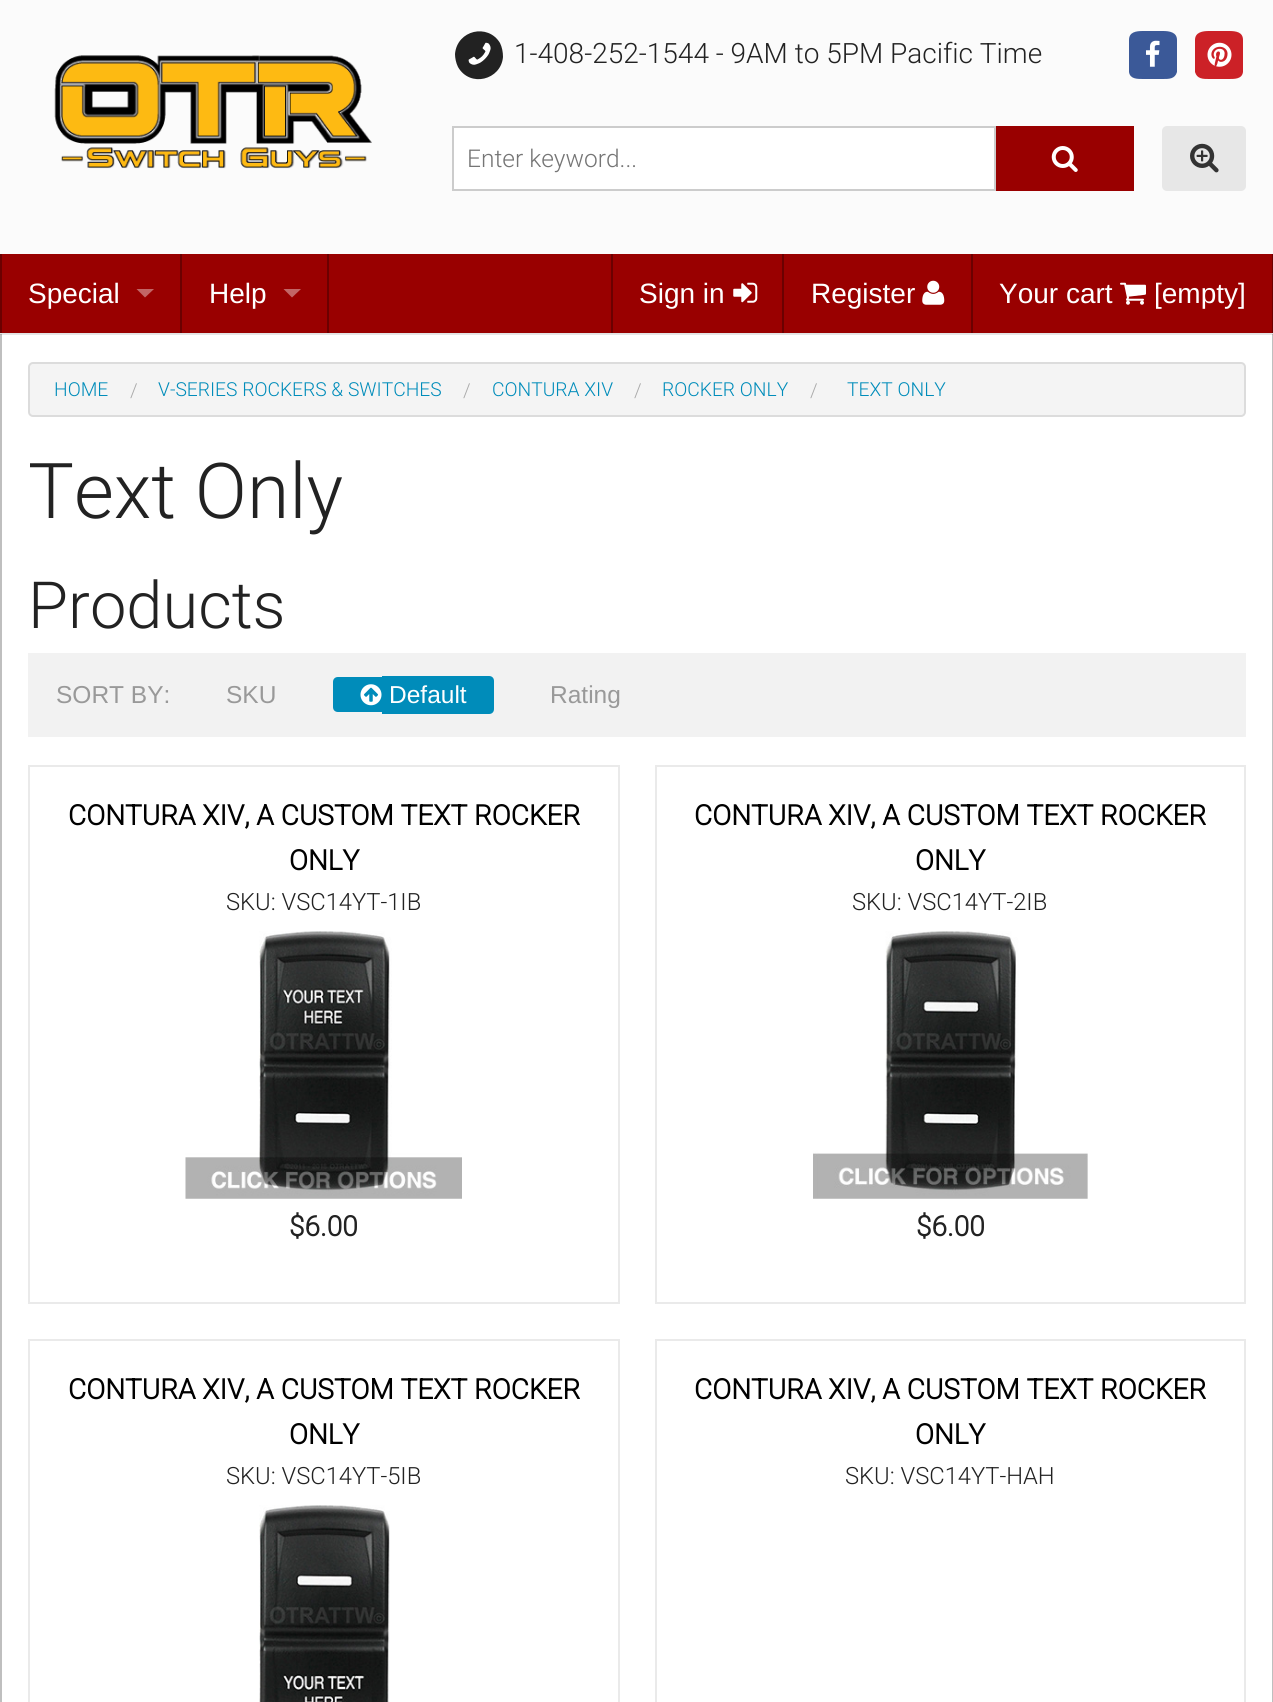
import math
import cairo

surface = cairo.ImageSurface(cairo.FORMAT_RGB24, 1273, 1702)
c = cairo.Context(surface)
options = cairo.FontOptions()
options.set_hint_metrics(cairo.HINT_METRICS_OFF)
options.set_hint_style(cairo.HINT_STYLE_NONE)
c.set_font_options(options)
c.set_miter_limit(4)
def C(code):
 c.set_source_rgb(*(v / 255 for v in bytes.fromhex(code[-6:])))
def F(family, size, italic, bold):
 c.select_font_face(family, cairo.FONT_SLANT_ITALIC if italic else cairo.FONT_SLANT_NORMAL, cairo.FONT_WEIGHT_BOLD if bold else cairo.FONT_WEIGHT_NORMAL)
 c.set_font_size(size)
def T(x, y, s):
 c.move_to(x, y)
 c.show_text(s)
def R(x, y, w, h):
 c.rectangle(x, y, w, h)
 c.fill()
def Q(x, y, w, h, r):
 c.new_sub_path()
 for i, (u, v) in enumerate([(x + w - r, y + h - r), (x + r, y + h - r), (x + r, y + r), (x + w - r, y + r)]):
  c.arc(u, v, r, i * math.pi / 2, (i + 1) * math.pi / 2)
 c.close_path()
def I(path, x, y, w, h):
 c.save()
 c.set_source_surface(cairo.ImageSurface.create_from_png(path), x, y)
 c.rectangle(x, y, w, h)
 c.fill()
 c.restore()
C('ffffff')
c.paint()
C('fbfbfb')
R(0,0,1273,254)
C('e2e2e2')
R(0,333,1273,1)
I('1.png',54,55,318,114)
C('222222')
c.new_path()
c.move_to(500,43)
c.curve_to(502,47,503,52,503,57)
c.curve_to(501,80,470,88,458,67)
c.curve_to(456,63,455,58,455,54)
c.curve_to(457,30,488,23,500,43)
c.close_path()
c.fill()
I('2.png',468,42,23,23)
F('Roboto Light',28,0,0)
T(514,63,'1-408-252-1544 - 9AM to 5PM Pacific Time')
C('3b5998')
c.new_path()
c.move_to(1177,40)
c.line_to(1177,72)
c.curve_to(1175,79,1169,79,1163,79)
c.line_to(1143,79)
c.curve_to(1137,79,1130,79,1129,72)
c.line_to(1129,40)
c.curve_to(1129,32,1136,31,1143,31)
c.line_to(1163,31)
c.curve_to(1169,31,1177,32,1177,40)
c.close_path()
c.fill()
I('3.png',1146,40,14,27)
C('cc2127')
c.new_path()
c.move_to(1243,40)
c.line_to(1243,72)
c.curve_to(1242,79,1235,79,1229,79)
c.line_to(1209,79)
c.curve_to(1203,79,1197,79,1195,72)
c.line_to(1195,40)
c.curve_to(1195,32,1203,31,1209,31)
c.line_to(1229,31)
c.curve_to(1236,31,1243,32,1243,40)
c.close_path()
c.fill()
I('4.png',1207,42,25,25)
C('ffffff')
c.rectangle(453,127,542,63)
c.fill_preserve()
C('cccccc')
c.stroke()
F('Roboto Light',24.5,0,0)
C('757575')
T(467,167,'Enter keyword...')
C('990000')
R(996,126,138,65)
I('5.png',1051,146,27,26)
C('e7e7e7')
Q(1162,126,84,65,5)
c.fill()
I('6.png',1190,143,29,30)
C('990000')
R(2,254,1270,79)
C('6b0000')
R(0,254,2,79)
F('Liberation Sans',28,0,0)
C('ffffff')
T(28,303,'Special')
C('c26666')
c.new_path()
c.move_to(136.5,289)
c.line_to(154,289)
c.line_to(145,297.5)
c.close_path()
c.fill()
C('6b0000')
R(180,254,2,79)
C('ffffff')
T(209,303,'Help')
C('c26666')
c.new_path()
c.move_to(283.5,289)
c.line_to(301,289)
c.line_to(292,297.5)
c.close_path()
c.fill()
C('6b0000')
R(327,254,2,79)
R(611,254,2,79)
C('ffffff')
T(639,303,'Sign in')
I('7.png',733,282,25,21)
C('6b0000')
R(782,254,2,79)
C('ffffff')
T(811,303,'Register')
I('8.png',922,280,23,25)
C('6b0000')
R(971,254,2,79)
C('ffffff')
T(999,303,'Your cart')
I('9.png',1120,282,26,23)
T(1154,303,'[empty]')
C('6b0000')
R(1272,254,1,79)
C('e6e6e6')
R(0,334,1273,1)
C('bfbfbf')
R(1272,334,1,1368)
C('acacac')
R(1272,334,1,1)
C('bfbfbf')
R(0,334,2,1368)
C('acacac')
R(0,334,2,1)
C('f4f4f4')
Q(29,363,1216,53,4)
c.fill_preserve()
C('dcdcdc')
c.stroke()
F('Roboto Light',19.25,0,0)
C('008cba')
T(54,396,'HOME')
C('aaaaaa')
T(130,397,'/')
C('008cba')
T(158,396,'V-SERIES ROCKERS & SWITCHES')
C('aaaaaa')
T(463,397,'/')
C('008cba')
T(492,396,'CONTURA XIV')
C('aaaaaa')
T(634,397,'/')
C('008cba')
T(662,396,'ROCKER ONLY')
C('aaaaaa')
T(810,397,'/')
C('008cba')
T(847,396,'TEXT ONLY')
F('Roboto Light',77,0,0)
C('222222')
T(28,518,'Text Only')
F('Roboto Light',65,0,0)
T(28,628,'Products')
C('f2f2f2')
R(28,653,1218,84)
F('Liberation Sans',24.5,0,0)
C('999999')
T(56,703,'SORT BY:')
T(226,703,'SKU')
C('008cba')
c.new_path()
c.move_to(338,677)
c.line_to(382,677)
c.line_to(382,712)
c.line_to(338,712)
c.curve_to(335,712,333,710,333,707)
c.line_to(333,682)
c.curve_to(333,679,335,677,338,677)
c.close_path()
c.fill()
c.new_path()
c.move_to(382,676)
c.line_to(489,676)
c.curve_to(492,676,494,678,494,681)
c.line_to(494,709)
c.curve_to(494,712,492,714,489,714)
c.line_to(382,714)
c.close_path()
c.fill()
I('10.png',360,684,22,22)
C('ffffff')
T(389,703,'Default')
C('999999')
T(550,703,'Rating')
c.rectangle(29,766,590,537)
C('eaeaea')
c.stroke()
F('Roboto',28,0,1)
C('000000')
T(68,825,'CONTURA XIV, A CUSTOM TEXT ROCKER')
T(289,870,'ONLY')
F('Roboto Light',23.75,0,0)
C('222222')
T(226,910,'SKU: VSC14YT-1IB')
I('11.png',185,931,277,268)
F('Roboto',28,0,1)
T(289,1236,'$6.00')
c.rectangle(656,766,589,537)
C('eaeaea')
c.stroke()
C('000000')
T(694,825,'CONTURA XIV, A CUSTOM TEXT ROCKER')
T(915,870,'ONLY')
F('Roboto Light',23.75,0,0)
C('222222')
T(852,910,'SKU: VSC14YT-2IB')
I('12.png',813,931,275,268)
F('Roboto',28,0,1)
T(916,1236,'$6.00')
c.rectangle(29,1340,590,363)
C('eaeaea')
c.stroke()
C('000000')
T(68,1399,'CONTURA XIV, A CUSTOM TEXT ROCKER')
T(289,1444,'ONLY')
F('Roboto Light',23.75,0,0)
C('222222')
T(226,1484,'SKU: VSC14YT-5IB')
I('13.png',259,1505,131,197)
c.rectangle(656,1340,589,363)
C('eaeaea')
c.stroke()
F('Roboto',28,0,1)
C('000000')
T(694,1399,'CONTURA XIV, A CUSTOM TEXT ROCKER')
T(915,1444,'ONLY')
F('Roboto Light',23.75,0,0)
C('222222')
T(845,1484,'SKU: VSC14YT-HAH')
surface.write_to_png('o.png')
